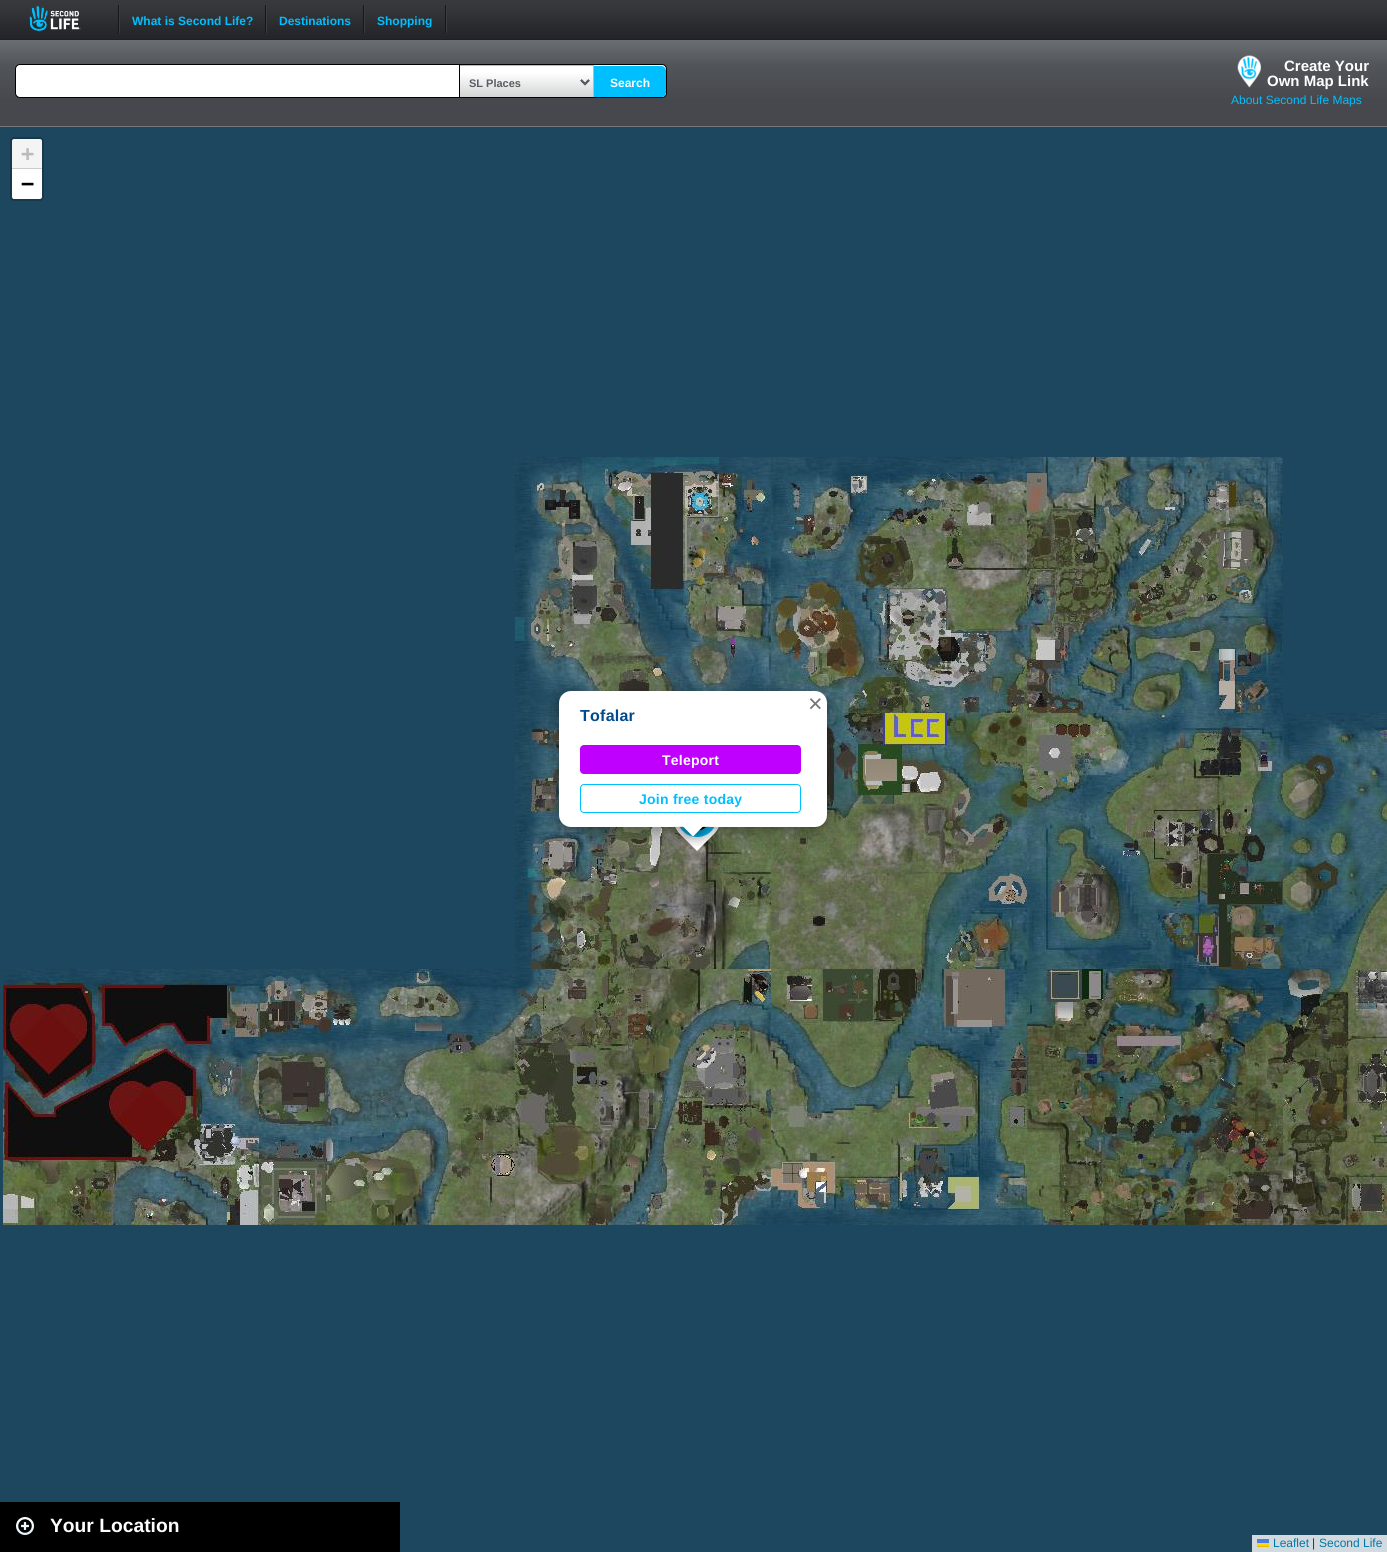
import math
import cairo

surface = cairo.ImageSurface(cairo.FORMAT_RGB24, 1387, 1552)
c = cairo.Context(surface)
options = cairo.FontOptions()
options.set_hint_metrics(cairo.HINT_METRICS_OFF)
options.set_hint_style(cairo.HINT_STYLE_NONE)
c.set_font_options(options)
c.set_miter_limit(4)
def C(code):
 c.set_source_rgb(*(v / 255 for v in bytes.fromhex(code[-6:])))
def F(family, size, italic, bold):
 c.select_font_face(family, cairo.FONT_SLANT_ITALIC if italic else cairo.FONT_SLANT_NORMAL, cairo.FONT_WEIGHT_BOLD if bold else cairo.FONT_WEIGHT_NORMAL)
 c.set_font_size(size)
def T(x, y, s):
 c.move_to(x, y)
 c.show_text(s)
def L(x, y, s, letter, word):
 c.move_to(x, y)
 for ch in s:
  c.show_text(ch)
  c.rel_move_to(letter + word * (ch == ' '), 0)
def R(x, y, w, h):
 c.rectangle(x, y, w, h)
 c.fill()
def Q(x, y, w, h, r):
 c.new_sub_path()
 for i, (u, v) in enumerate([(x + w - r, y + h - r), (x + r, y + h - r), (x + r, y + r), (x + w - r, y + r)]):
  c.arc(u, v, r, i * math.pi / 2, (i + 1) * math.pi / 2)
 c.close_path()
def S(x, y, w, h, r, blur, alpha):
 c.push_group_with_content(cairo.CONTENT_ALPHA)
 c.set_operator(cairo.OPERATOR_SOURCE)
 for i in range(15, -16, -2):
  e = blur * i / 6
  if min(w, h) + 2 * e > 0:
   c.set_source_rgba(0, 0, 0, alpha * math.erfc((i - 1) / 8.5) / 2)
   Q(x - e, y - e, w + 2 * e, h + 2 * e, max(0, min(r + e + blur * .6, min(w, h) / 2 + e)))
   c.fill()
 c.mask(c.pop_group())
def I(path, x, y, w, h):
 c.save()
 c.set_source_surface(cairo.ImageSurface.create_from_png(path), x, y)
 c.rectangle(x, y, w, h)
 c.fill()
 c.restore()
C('1d475f')
c.paint()
I('1.png',0,0,1387,40)
I('2.png',29,6,52,25)
C('3a3e42')
R(119,5,1,28)
C('161616')
R(118,5,1,28)
F('Liberation Sans',12,0,1)
C('00bfff')
T(132,25,'What is Second Life?')
C('3a3e42')
R(266,5,1,28)
C('161616')
R(265,5,1,28)
C('00bfff')
T(279,25,'Destinations')
C('3a3e42')
R(364,5,1,28)
C('161616')
R(363,5,1,28)
C('00bfff')
T(377,25,'Shopping')
C('3a3e42')
R(446,5,1,28)
C('161616')
R(445,5,1,28)
gradient = cairo.LinearGradient(0,126,0,40)
gradient.add_color_stop_rgba(.29,0.278,0.282,0.302,1)
gradient.add_color_stop_rgba(.71,0.318,0.333,0.349,1)
gradient.add_color_stop_rgba(1,0.42,0.431,0.451,1)
c.set_source(gradient)
R(0,40,1387,86)
C('72777e')
R(0,126,1387,1)
C('ffffff')
Q(15.5,64.5,651,33,4.5)
c.fill_preserve()
C('000000')
c.set_line_width(1)
c.stroke()
I('3.png',460,66,133,31)
C('bbbbbb')
R(459,65,135,1)
R(593,65,1,32)
C('000000')
R(459,65,1,32)
c.new_path()
c.move_to(581,80)
c.line_to(585,84)
c.line_to(589,80)
C('595c62')
c.set_line_width(2)
c.stroke()
F('Liberation Sans',11,0,1)
T(469,87,'SL Places')
c.save()
Q(16,65,650,32,4)
c.clip()
C('00bfff')
c.new_path()
c.move_to(594,66)
c.line_to(661,66)
c.curve_to(664,66,666,68,666,71)
c.line_to(666,95)
c.curve_to(666,98,664,100,661,100)
c.line_to(594,100)
c.close_path()
c.fill()
c.restore()
F('Liberation Sans',12,0,1)
C('ffffff')
T(610,87,'Search')
I('4.png',1237,55,25,33)
F('Liberation Sans',15,0,1)
T(1284,71,'Create Your')
T(1267,86,'Own Map Link')
F('Liberation Sans',12,0,0)
C('00bfff')
T(1231,104,'About Second Life Maps')
Q(11,138,32,62,3)
C('17394c')
c.stroke()
C('f4f4f4')
c.new_path()
c.move_to(14,139)
c.line_to(40,139)
c.curve_to(41,139,42,140,42,141)
c.line_to(42,169)
c.line_to(12,169)
c.line_to(12,141)
c.curve_to(12,140,13,139,14,139)
c.close_path()
c.fill()
C('cccccc')
R(12,168,30,1)
F('DejaVu Sans Mono',22,0,1)
C('bbbbbb')
T(21,161,'+')
C('ffffff')
c.new_path()
c.move_to(12,169)
c.line_to(42,169)
c.line_to(42,197)
c.curve_to(42,198,41,199,40,199)
c.line_to(14,199)
c.curve_to(13,199,12,198,12,197)
c.close_path()
c.fill()
C('000000')
T(21,191,'−')
C('d2dadf')
R(1252,1535,135,17)
F('Liberation Sans',12,0,0)
C('0078a8')
T(1273,1547,'Leaflet')
C('4c7be1')
R(1257,1539,12,4)
C('ffd500')
R(1257,1543,12,3)
C('e0bc00')
R(1257,1546,12,1)
C('333333')
T(1312,1547,'|')
C('0078a8')
T(1319,1547,'Second Life')
I('5.png',515,457,256,256)
I('6.png',771,457,256,256)
I('7.png',1027,457,256,256)
I('8.png',515,713,256,256)
I('9.png',771,713,256,256)
I('10.png',1027,713,256,256)
I('11.png',1283,713,104,256)
I('12.png',3,969,256,256)
I('13.png',259,969,256,256)
I('14.png',515,969,256,256)
I('15.png',771,969,256,256)
I('16.png',1027,969,256,256)
I('17.png',1283,969,104,256)
I('18.png',675,827,44,24)
C('000000')
S(559,694,268,136,12,7,.4)
C('ffffff')
Q(559,691,268,136,12)
c.fill()
F('Liberation Sans',25,0,0)
C('757575')
T(808,712,'×')
F('Liberation Sans',16,0,1)
C('014a8e')
L(580,721,'Tofalar',.25,0)
C('bf00ff')
Q(580,745,221,29,4)
c.fill()
F('Liberation Sans',14,0,1)
C('ffffff')
L(662,765,'Teleport',.25,0)
Q(580.5,784.5,220,28,3.5)
C('00bfff')
c.set_line_width(1)
c.stroke()
L(639,804,'Join free today',.25,0)
c.save()
c.rectangle(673,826,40,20)
c.clip()
C('000000')
S(685,819,17,17,0,7,.4)
c.restore()
c.save()
c.rectangle(673,826,40,20)
c.clip()
C('ffffff')
c.new_path()
c.move_to(693,812.5)
c.line_to(705,824.5)
c.line_to(693,836.5)
c.line_to(681,824.5)
c.close_path()
c.fill()
c.restore()
C('000000')
R(0,1502,400,50)
I('19.png',16,1517,18,18)
F('Liberation Sans',19.25,0,1)
C('ffffff')
T(50,1532,'Your Location')
surface.write_to_png('o.png')
